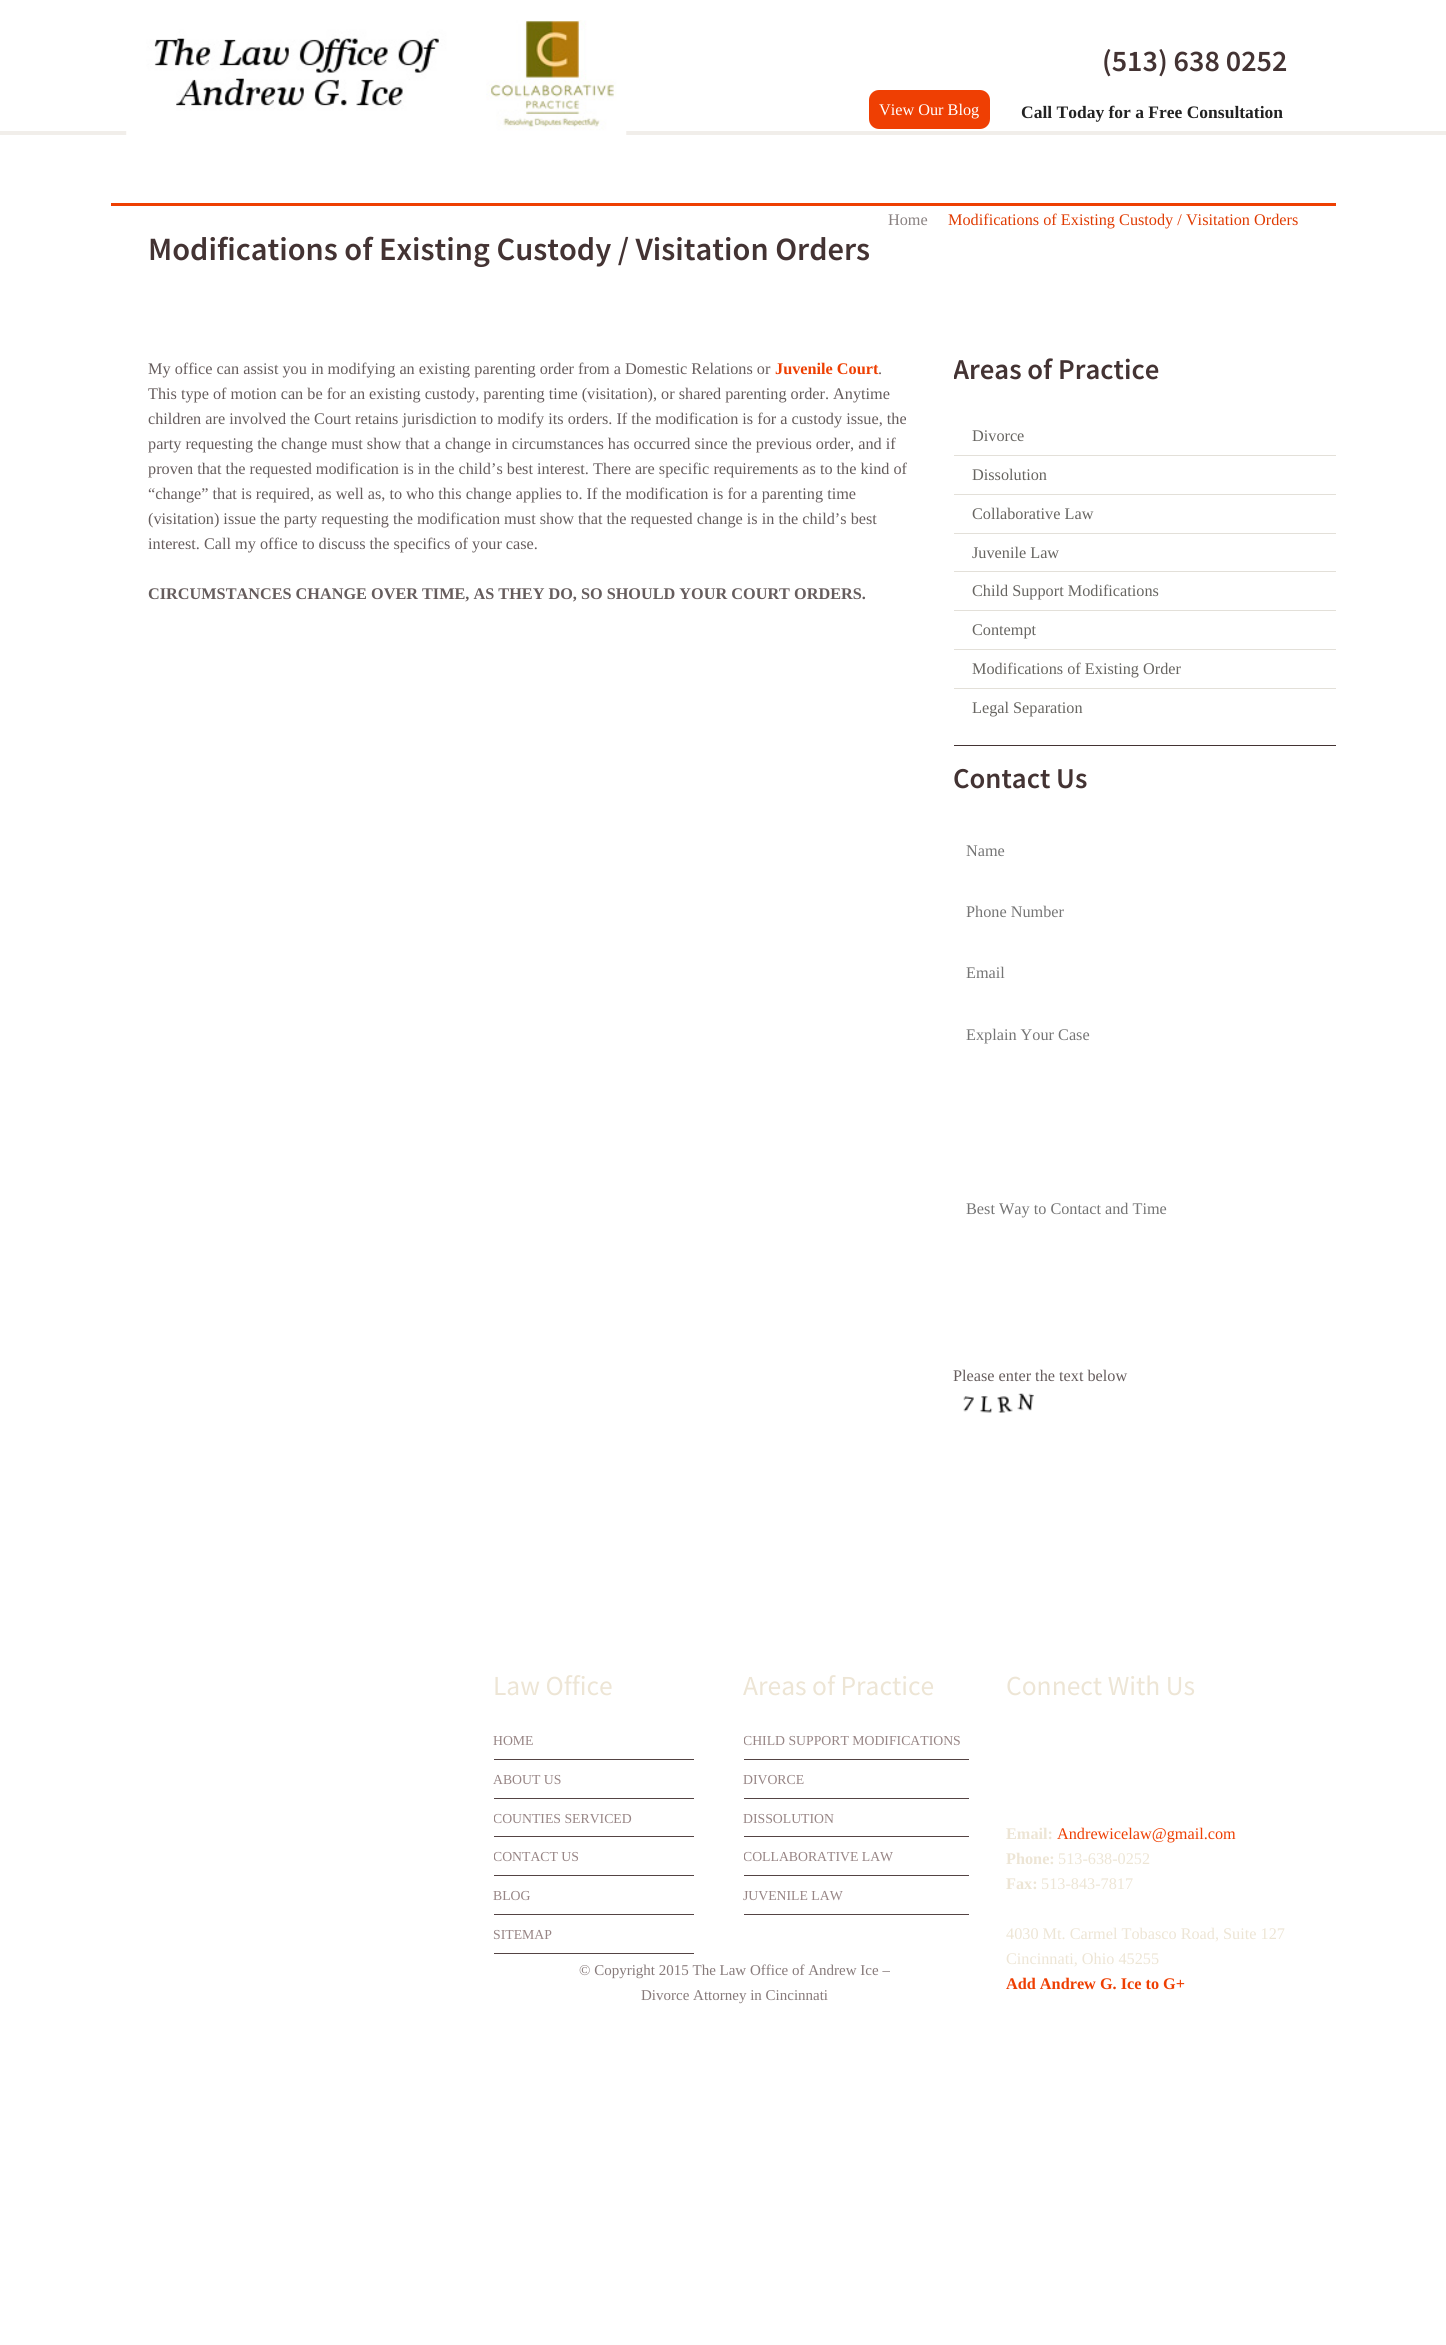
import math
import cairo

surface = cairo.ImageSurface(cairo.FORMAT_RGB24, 1446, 2345)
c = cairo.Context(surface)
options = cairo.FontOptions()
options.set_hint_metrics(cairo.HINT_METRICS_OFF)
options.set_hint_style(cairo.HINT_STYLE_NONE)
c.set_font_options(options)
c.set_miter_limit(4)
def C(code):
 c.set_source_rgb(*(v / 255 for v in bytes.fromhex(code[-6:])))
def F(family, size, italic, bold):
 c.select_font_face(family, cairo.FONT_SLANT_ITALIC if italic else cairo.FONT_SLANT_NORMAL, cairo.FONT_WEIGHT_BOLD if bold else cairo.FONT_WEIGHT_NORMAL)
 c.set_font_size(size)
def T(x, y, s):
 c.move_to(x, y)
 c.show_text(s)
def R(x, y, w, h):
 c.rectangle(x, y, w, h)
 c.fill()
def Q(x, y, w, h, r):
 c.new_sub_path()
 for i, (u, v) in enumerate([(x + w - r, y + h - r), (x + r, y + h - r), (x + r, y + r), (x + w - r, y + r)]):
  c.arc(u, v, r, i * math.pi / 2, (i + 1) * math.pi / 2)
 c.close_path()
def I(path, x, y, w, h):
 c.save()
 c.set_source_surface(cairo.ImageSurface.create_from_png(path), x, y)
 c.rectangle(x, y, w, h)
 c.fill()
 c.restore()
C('ffffff')
c.paint()
C('f1eeea')
R(0,131,1446,4)
I('1.png',126,20,501,115)
C('ef3f03')
Q(869,90,121,39,10)
c.fill()
F('Liberation Serif',16.25,0,0)
C('ffffff')
T(879,115,'View Our Blog')
F('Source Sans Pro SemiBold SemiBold',30,0,0)
C('433333')
T(1102,71,'(513) 638 0252')
F('Liberation Serif',17.5,0,1)
C('222222')
T(1021,118,'Call Today for a Free Consultation')
C('ee3f02')
R(111,203,1225,3)
F('Liberation Serif',16.25,0,0)
C('898181')
T(888,225,'Home')
C('e03b02')
T(948,225,'Modifications of Existing Custody / Visitation Orders')
F('Source Sans Pro SemiBold SemiBold',32.5,0,0)
C('433333')
T(148,260,'Modifications of Existing Custody / Visitation Orders')
F('Liberation Serif',16.25,0,0)
C('665d5d')
T(148,374,'My office can assist you in modifying an existing parenting order from a Domestic Relations or')
F('Liberation Serif',16.25,0,1)
C('ee3f02')
T(775,374,'Juvenile Court')
F('Liberation Serif',16.25,0,0)
C('665d5d')
T(878,374,'.')
T(148,399,'This type of motion can be for an existing custody, parenting time (visitation), or shared parenting order. Anytime')
T(148,424,'children are involved the Court retains jurisdiction to modify its orders. If the modification is for a custody issue, the')
T(148,449,'party requesting the change must show that a change in circumstances has occurred since the previous order, and if')
T(148,474,'proven that the requested modification is in the child’s best interest. There are specific requirements as to the kind of')
T(148,499,'“change” that is required, as well as, to who this change applies to. If the modification is for a parenting time')
T(148,524,'(visitation) issue the party requesting the modification must show that the requested change is in the child’s best')
T(148,549,'interest. Call my office to discuss the specifics of your case.')
F('Liberation Serif',16.25,0,1)
T(148,599,'CIRCUMSTANCES CHANGE OVER TIME, AS THEY DO, SO SHOULD YOUR COURT ORDERS.')
c.save()
c.rectangle(954,350,382,68)
c.clip()
F('Source Sans Pro SemiBold SemiBold',28.75,0,0)
C('433333')
T(953,379,'Areas of Practice')
c.restore()
C('e3e0d9')
R(954,455,382,1)
F('Liberation Serif',16.25,0,0)
C('676561')
T(972,441,'Divorce')
C('e3e0d9')
R(954,494,382,1)
C('676561')
T(972,480,'Dissolution')
C('e3e0d9')
R(954,533,382,1)
C('676561')
T(972,519,'Collaborative Law')
C('e3e0d9')
R(954,571,382,1)
C('676561')
T(972,558,'Juvenile Law')
C('e3e0d9')
R(954,610,382,1)
C('676561')
T(972,596,'Child Support Modifications')
C('e3e0d9')
R(954,649,382,1)
C('676561')
T(972,635,'Contempt')
C('e3e0d9')
R(954,688,382,1)
C('676561')
T(972,674,'Modifications of Existing Order')
T(972,713,'Legal Separation')
C('433333')
R(954,745,382,1)
F('Source Sans Pro SemiBold SemiBold',28.75,0,0)
T(953,788,'Contact Us')
F('Liberation Serif',16.25,0,0)
C('757575')
T(966,856,'Name')
T(966,917,'Phone Number')
T(966,978,'Email')
T(966,1040,'Explain Your Case')
T(966,1214,'Best Way to Contact and Time')
C('665d5d')
T(953,1381,'Please enter the text below')
I('2.png',963,1393,71,20)
F('Source Sans Pro',27.5,0,0)
C('ede5d5')
T(493,1695,'Law Office')
C('544444')
R(494,1759,200,1)
F('Liberation Serif',13.75,0,0)
C('978585')
T(493,1745,'HOME')
C('544444')
R(494,1798,200,1)
C('978585')
T(493,1784,'ABOUT US')
C('544444')
R(494,1836,200,1)
c.save()
c.rectangle(494,1799,200,37)
c.clip()
C('978585')
T(493,1823,'COUNTIES SERVICED')
c.restore()
R(494,1875,200,1)
c.save()
c.rectangle(494,1838,200,37)
c.clip()
C('978585')
T(493,1861,'CONTACT US')
c.restore()
R(494,1914,200,1)
C('978585')
T(493,1900,'BLOG')
C('544444')
R(494,1953,200,1)
C('978585')
T(493,1939,'SITEMAP')
F('Source Sans Pro',27.5,0,0)
C('ede5d5')
T(743,1695,'Areas of Practice')
C('544444')
R(744,1759,225,1)
c.save()
c.rectangle(744,1721,225,38)
c.clip()
F('Liberation Serif',13.75,0,0)
C('978585')
T(743,1745,'CHILD SUPPORT MODIFICATIONS')
c.restore()
R(744,1798,225,1)
F('Liberation Serif',13.75,0,0)
C('978585')
T(743,1784,'DIVORCE')
C('544444')
R(744,1836,225,1)
C('978585')
T(743,1823,'DISSOLUTION')
C('544444')
R(744,1875,225,1)
c.save()
c.rectangle(744,1838,225,37)
c.clip()
C('978585')
T(743,1861,'COLLABORATIVE LAW')
c.restore()
R(744,1914,225,1)
C('978585')
T(743,1900,'JUVENILE LAW')
F('Source Sans Pro',27.5,0,0)
C('ede5d5')
T(1006,1695,'Connect With Us')
F('Liberation Serif',16.25,0,1)
T(1006,1839,'Email:')
F('Liberation Serif',16.25,0,0)
C('ee3f02')
T(1057,1839,'Andrewicelaw@gmail.com')
F('Liberation Serif',16.25,0,1)
C('ede5d5')
T(1006,1864,'Phone:')
F('Liberation Serif',16.25,0,0)
T(1058,1864,'513-638-0252')
F('Liberation Serif',16.25,0,1)
T(1006,1889,'Fax:')
F('Liberation Serif',16.25,0,0)
T(1041,1889,'513-843-7817')
T(1006,1939,'4030 Mt. Carmel Tobasco Road, Suite 127')
T(1006,1964,'Cincinnati, Ohio 45255')
F('Liberation Serif',16.25,0,1)
C('ee3f02')
T(1006,1989,'Add Andrew G. Ice to G+')
F('Liberation Serif',15,0,0)
C('877a7a')
T(579,1975,'© Copyright 2015 The Law Office of Andrew Ice –')
T(641,2000,'Divorce Attorney in Cincinnati')
surface.write_to_png('o.png')
